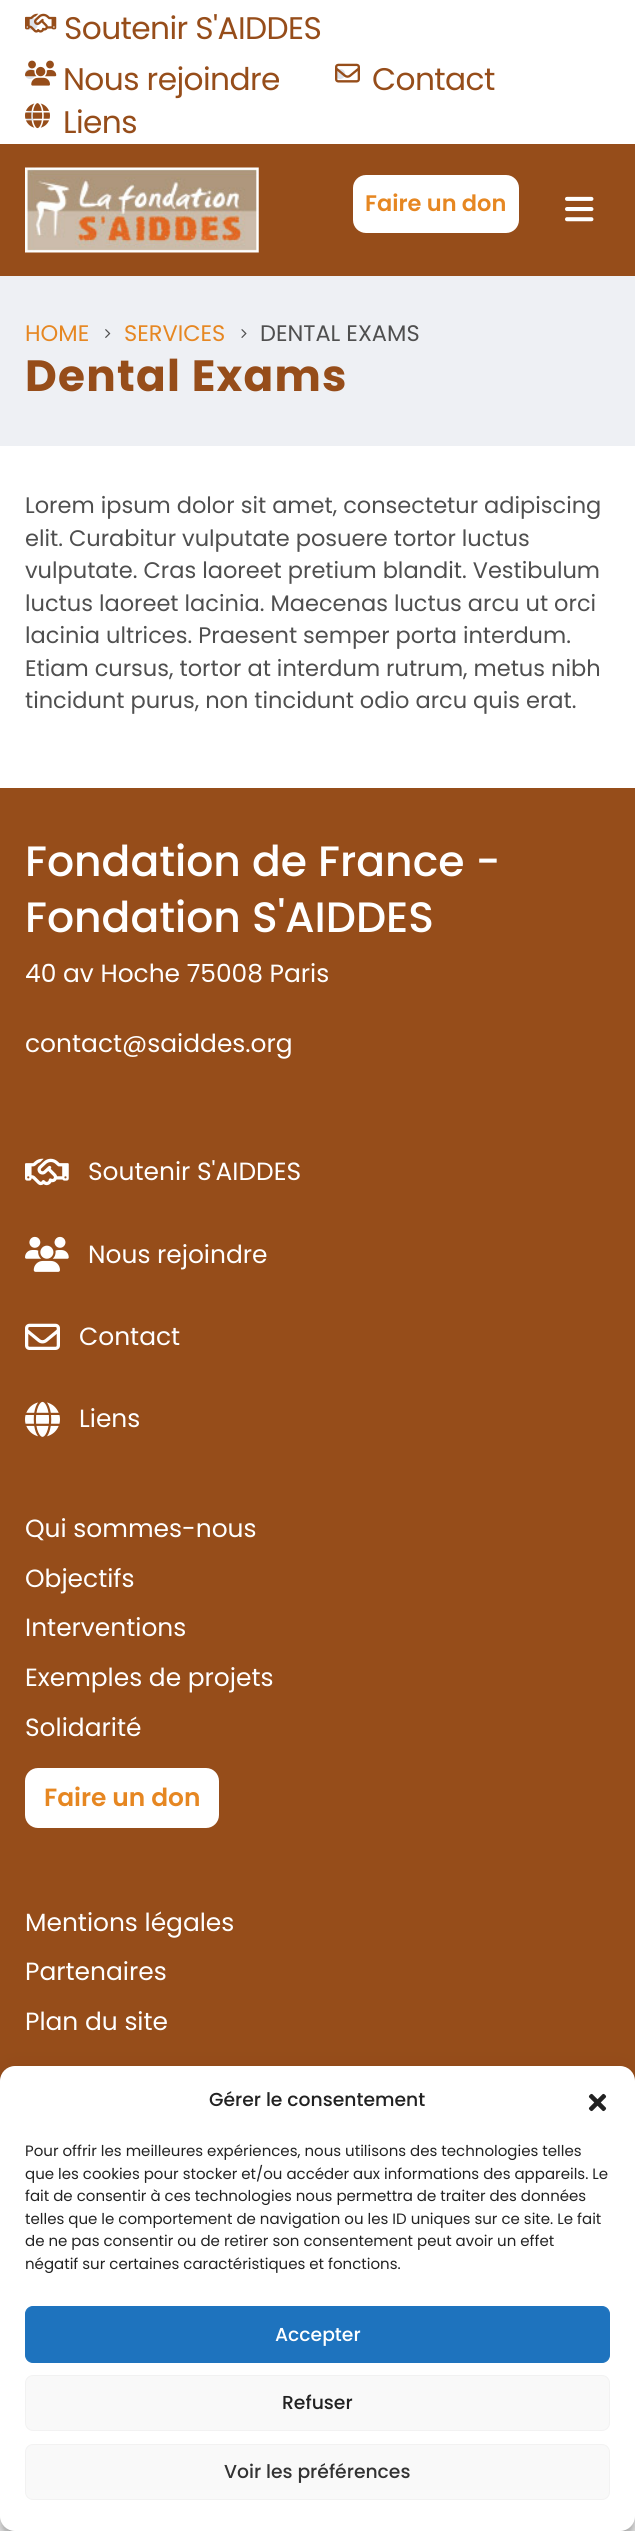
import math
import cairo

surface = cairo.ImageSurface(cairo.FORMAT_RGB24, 635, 2531)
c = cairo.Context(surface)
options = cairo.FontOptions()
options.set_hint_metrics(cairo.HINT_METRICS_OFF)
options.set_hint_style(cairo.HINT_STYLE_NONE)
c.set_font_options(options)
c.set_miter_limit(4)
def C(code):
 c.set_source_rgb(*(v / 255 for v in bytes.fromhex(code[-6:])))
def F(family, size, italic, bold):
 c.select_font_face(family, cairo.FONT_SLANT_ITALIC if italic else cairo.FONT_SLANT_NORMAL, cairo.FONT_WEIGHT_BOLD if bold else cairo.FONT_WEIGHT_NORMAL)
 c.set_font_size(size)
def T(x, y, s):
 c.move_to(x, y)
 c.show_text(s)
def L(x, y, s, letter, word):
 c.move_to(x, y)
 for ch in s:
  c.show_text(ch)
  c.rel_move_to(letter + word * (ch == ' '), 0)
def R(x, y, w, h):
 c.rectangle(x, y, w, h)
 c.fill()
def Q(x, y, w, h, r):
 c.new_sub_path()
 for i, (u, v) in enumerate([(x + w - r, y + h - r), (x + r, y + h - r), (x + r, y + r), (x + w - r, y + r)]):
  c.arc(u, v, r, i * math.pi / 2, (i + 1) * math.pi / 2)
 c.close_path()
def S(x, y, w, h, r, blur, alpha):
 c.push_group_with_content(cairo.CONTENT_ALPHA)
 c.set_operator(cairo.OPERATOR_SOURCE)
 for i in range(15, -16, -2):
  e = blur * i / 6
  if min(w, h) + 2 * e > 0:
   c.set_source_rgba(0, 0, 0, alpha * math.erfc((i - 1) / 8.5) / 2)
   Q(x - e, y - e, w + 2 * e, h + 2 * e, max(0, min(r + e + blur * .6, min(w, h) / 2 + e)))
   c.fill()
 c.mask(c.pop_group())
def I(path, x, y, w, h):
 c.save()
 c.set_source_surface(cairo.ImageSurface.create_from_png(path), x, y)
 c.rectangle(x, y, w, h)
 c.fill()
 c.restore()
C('ffffff')
c.paint()
C('dde2ea')
Q(25,18,13,12,6)
c.fill()
I('1.png',25,13,32,20)
F('Poppins',31.25,0,0)
C('964d1a')
L(64,39,'Soutenir S\'AIDDES',-.6,0)
C('dde2ea')
c.new_path()
c.arc(30,74,5,0,2 * math.pi)
c.fill()
I('2.png',25,60,32,26)
C('964d1a')
L(63,90,'Nous rejoindre',-.6,0)
C('dde2ea')
c.new_path()
c.arc(340,74,5,0,2 * math.pi)
c.fill()
I('3.png',335,63,25,20)
C('964d1a')
L(372,90,'Contact',-.6,0)
C('dde2ea')
c.new_path()
c.arc(30,116,5,0,2 * math.pi)
c.fill()
I('4.png',25,103,25,26)
C('964d1a')
L(63,133,'Liens',-.6,0)
R(0,144,635,132)
I('5.png',25,167,234,86)
C('ffffff')
Q(353,175,166,58,13)
c.fill()
F('Poppins SemiBold',22.5,0,0)
C('e68722')
T(365,211,'Faire un don')
I('6.png',565,196,29,26)
C('eef0f4')
R(0,276,635,170)
F('Poppins',22.5,0,0)
C('e68722')
T(25,341,'HOME')
I('7.png',105,329,6,9)
T(124,341,'SERVICES')
I('8.png',241,329,6,9)
C('4f4f4f')
T(260,341,'DENTAL EXAMS')
F('Poppins',43.75,0,1)
C('964d1a')
L(25,391,'Dental Exams',1.25,0)
F('Poppins',22.5,0,0)
C('4f4f4f')
T(25,513,'Lorem ipsum dolor sit amet, consectetur adipiscing')
T(25,546,'elit. Curabitur vulputate posuere tortor luctus')
T(25,578,'vulputate. Cras laoreet pretium blandit. Vestibulum')
T(25,611,'luctus laoreet lacinia. Maecenas luctus arcu ut orci')
T(25,643,'lacinia ultrices. Praesent semper porta interdum.')
T(25,676,'Etiam cursus, tortor at interdum rutrum, metus nibh')
T(25,708,'tincidunt purus, non tincidunt odio arcu quis erat.')
C('964d1a')
R(0,788,635,1293)
F('Poppins Medium',42.5,0,0)
C('ffffff')
T(25,876,'Fondation de France -')
T(25,932,'Fondation S\'AIDDES')
F('Poppins',24.9,0,0)
T(25,982,'40 av Hoche 75008 Paris')
T(25,1052,'contact@saiddes.org')
I('9.png',25,1158,44,28)
T(88,1180,'Soutenir S\'AIDDES')
I('10.png',25,1236,44,36)
T(88,1263,'Nous rejoindre')
I('11.png',25,1323,35,27)
T(79,1345,'Contact')
I('12.png',25,1401,35,36)
T(79,1427,'Liens')
T(25,1537,'Qui sommes-nous')
T(25,1587,'Objectifs')
T(25,1636,'Interventions')
T(25,1686,'Exemples de projets')
T(25,1736,'Solidarité')
Q(25,1768,194,60,13)
c.fill()
F('Poppins SemiBold',24.9,0,0)
C('e68722')
T(44,1806,'Faire un don')
F('Poppins',24.9,0,0)
C('ffffff')
T(25,1931,'Mentions légales')
T(25,1980,'Partenaires')
T(25,2030,'Plan du site')
C('000000')
S(0,2074,635,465,15,4,.23)
S(0,2079,635,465,15,12.5,.19)
C('808080')
S(548,2439,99,75,2.5,3,1)
C('ffffff')
Q(0,2066,635,465,15)
c.fill()
F('Poppins Medium',18.75,0,0)
C('222222')
T(209,2106,'Gérer le consentement')
I('13.png',588,2093,19,19)
F('Poppins',15,0,0)
T(25,2156,'Pour offrir les meilleures expériences, nous utilisons des technologies telles')
T(25,2179,'que les cookies pour stocker et/ou accéder aux informations des appareils. Le')
T(25,2201,'fait de consentir à ces technologies nous permettra de traiter des données')
T(25,2224,'telles que le comportement de navigation ou les ID uniques sur ce site. Le fait')
T(25,2246,'de ne pas consentir ou de retirer son consentement peut avoir un effet')
T(25,2269,'négatif sur certaines caractéristiques et fonctions.')
C('1e73be')
Q(25.5,2306.5,584,56,7.5)
c.fill_preserve()
c.set_line_width(1)
c.stroke()
F('Poppins Medium',18.75,0,0)
C('ffffff')
T(275,2341,'Accepter')
C('f9f9f9')
Q(25.5,2375.5,584,55,7.5)
c.fill_preserve()
C('f2f2f2')
c.stroke()
C('222222')
T(282,2409,'Refuser')
C('f9f9f9')
Q(25.5,2444.5,584,55,7.5)
c.fill_preserve()
C('f2f2f2')
c.stroke()
C('333333')
T(224,2478,'Voir les préférences')
surface.write_to_png('o.png')
